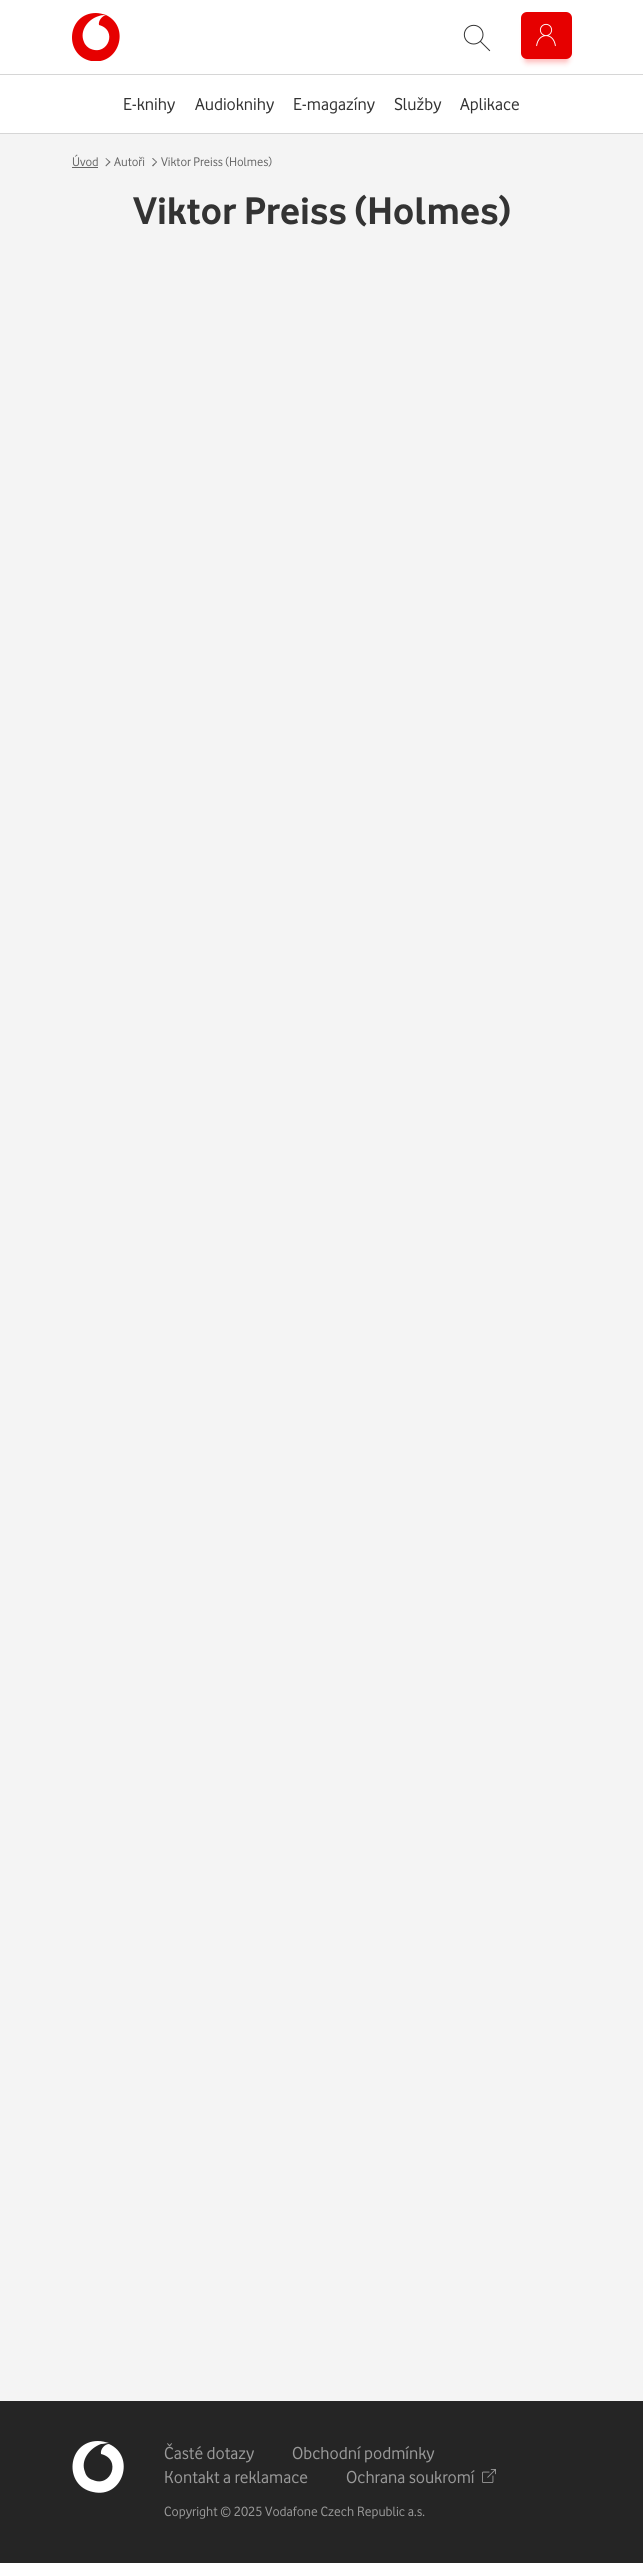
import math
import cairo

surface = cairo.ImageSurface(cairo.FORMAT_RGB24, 643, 2563)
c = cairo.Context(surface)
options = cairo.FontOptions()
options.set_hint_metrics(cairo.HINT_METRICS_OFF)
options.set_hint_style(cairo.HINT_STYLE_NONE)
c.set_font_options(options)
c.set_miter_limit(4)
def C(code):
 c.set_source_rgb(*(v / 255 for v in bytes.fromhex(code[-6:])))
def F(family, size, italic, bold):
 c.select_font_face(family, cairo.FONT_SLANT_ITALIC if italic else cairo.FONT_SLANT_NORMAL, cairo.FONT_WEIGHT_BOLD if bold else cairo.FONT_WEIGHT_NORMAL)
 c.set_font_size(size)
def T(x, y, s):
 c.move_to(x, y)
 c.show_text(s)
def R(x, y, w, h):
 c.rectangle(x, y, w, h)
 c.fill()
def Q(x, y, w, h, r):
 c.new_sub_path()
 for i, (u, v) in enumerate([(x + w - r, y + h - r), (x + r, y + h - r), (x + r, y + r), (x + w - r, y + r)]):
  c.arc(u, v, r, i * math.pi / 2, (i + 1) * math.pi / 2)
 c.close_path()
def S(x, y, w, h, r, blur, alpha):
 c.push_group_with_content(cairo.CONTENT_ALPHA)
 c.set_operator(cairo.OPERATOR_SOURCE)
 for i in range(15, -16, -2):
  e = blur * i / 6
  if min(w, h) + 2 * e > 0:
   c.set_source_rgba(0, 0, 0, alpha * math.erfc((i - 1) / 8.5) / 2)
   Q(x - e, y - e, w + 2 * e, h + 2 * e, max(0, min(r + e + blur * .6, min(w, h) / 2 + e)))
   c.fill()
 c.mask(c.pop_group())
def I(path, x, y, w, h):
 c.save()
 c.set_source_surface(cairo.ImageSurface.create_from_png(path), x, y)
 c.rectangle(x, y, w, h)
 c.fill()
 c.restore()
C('f4f4f4')
c.paint()
C('ffffff')
R(0,0,643,74)
C('d6d6d6')
R(0,74,643,1)
c.save()
c.rectangle(72,13,48,48)
c.clip()
C('e60000')
c.new_path()
c.move_to(96,13)
c.curve_to(67,13,63,55,91,61)
c.curve_to(119,66,131,27,106,15)
c.curve_to(102,16,98,21,99,25)
c.curve_to(118,30,108,56,91,49)
c.curve_to(88,48,85,45,84,42)
c.curve_to(79,31,88,19,99,16)
c.curve_to(101,15,104,15,106,15)
c.curve_to(103,14,99,13,96,13)
c.close_path()
c.fill()
c.restore()
I('1.png',463,24,28,28)
C('ff0000')
S(525,23,43,39,2,3,.3)
C('e60000')
Q(521,12,51,47,6)
c.fill()
I('2.png',536,23,20,24)
C('ffffff')
R(0,75,643,58)
C('d6d6d6')
R(0,133,643,1)
F('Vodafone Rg',18,0,0)
C('333333')
T(123,110,'E-knihy')
T(195,110,'Audioknihy')
T(293,110,'E-magazíny')
T(394,110,'Služby')
T(460,110,'Aplikace')
F('Vodafone Rg',13,0,0)
C('666666')
T(72,166,'Úvod')
R(72,167,26,1)
c.new_path()
c.move_to(106,158)
c.line_to(110.5,162)
c.line_to(109.5,162.5)
c.line_to(105.5,158.5)
c.close_path()
c.fill()
c.new_path()
c.move_to(109.5,161.5)
c.line_to(110.5,162)
c.line_to(106,166.5)
c.line_to(105.5,165.5)
c.close_path()
c.fill()
T(114,166,'Autoři')
c.new_path()
c.move_to(153,158)
c.line_to(157,162)
c.line_to(156.5,162.5)
c.line_to(152,158.5)
c.close_path()
c.fill()
c.new_path()
c.move_to(156.5,161.5)
c.line_to(157,162)
c.line_to(153,166.5)
c.line_to(152,165.5)
c.close_path()
c.fill()
T(161,166,'Viktor Preiss (Holmes)')
F('Vodafone Rg',40,0,1)
C('333333')
T(133,224,'Viktor Preiss (Holmes)')
C('252525')
R(0,2401,643,162)
C('ffffff')
c.new_path()
c.move_to(98,2441)
c.curve_to(67,2441,63,2486,93,2492)
c.curve_to(123,2499,136,2456,109,2444)
c.curve_to(105,2444,100,2449,101,2454)
c.curve_to(122,2459,111,2488,93,2480)
c.curve_to(89,2479,86,2476,85,2472)
c.curve_to(80,2460,90,2448,101,2444)
c.curve_to(104,2444,106,2443,109,2443)
c.curve_to(105,2442,102,2441,98,2441)
c.close_path()
c.fill()
F('Vodafone Rg',18,0,0)
C('999999')
T(164,2459,'Časté dotazy')
T(292,2459,'Obchodní podmínky')
T(164,2483,'Kontakt a reklamace')
T(346,2483,'Ochrana soukromí')
I('3.png',482,2469,14,14)
F('Vodafone Rg',14,0,0)
T(164,2516,'Copyright © 2025 Vodafone Czech Republic a.s.')
surface.write_to_png('o.png')
